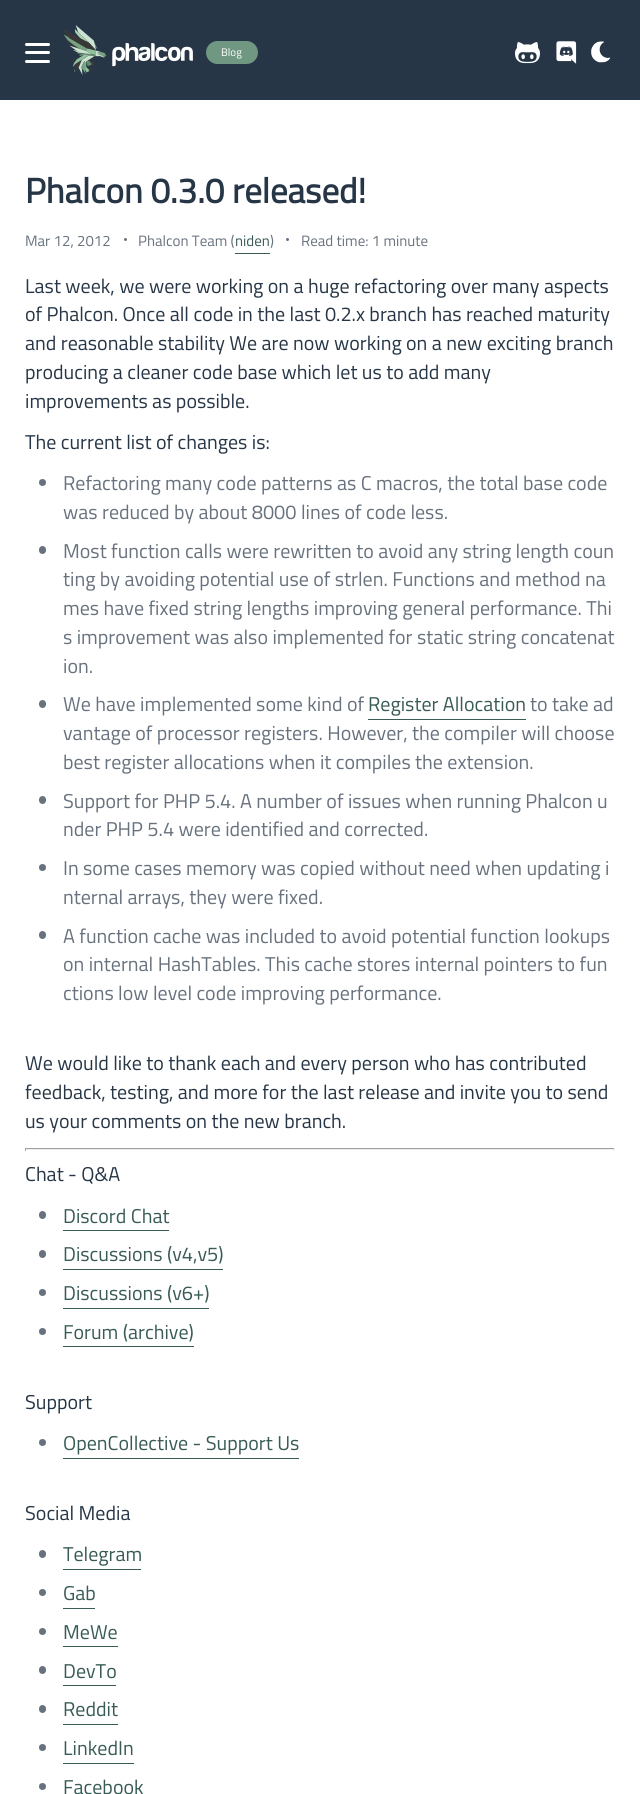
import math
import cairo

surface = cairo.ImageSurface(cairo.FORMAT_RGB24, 640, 1794)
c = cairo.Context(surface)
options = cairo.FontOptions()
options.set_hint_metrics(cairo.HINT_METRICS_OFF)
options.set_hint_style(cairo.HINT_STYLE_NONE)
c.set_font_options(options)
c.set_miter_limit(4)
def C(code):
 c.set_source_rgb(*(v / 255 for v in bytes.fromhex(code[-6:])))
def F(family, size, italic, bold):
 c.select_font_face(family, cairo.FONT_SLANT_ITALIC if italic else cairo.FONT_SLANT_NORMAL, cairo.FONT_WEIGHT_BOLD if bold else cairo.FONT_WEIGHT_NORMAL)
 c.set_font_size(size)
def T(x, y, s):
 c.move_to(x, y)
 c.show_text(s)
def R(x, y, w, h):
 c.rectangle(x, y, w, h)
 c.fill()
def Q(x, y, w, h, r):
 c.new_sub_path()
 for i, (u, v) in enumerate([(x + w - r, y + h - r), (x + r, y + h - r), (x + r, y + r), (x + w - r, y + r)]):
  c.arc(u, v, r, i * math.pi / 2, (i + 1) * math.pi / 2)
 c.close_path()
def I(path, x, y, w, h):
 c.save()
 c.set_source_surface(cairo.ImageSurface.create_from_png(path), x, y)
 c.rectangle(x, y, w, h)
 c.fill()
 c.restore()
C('ffffff')
c.paint()
C('273646')
R(0,0,640,100)
C('ffffff')
Q(25,43,25,3,1.5)
c.fill()
Q(25,51,25,3,1.5)
c.fill()
Q(25,60,25,3,1.5)
c.fill()
I('1.png',63,25,130,50)
C('709781')
Q(206,41,52,23,11.5)
c.fill()
F('Titillium Web',11,0,0)
C('ffffff')
T(221,56,'Blog')
I('2.png',515,42,25,22)
I('3.png',556,41,21,23)
I('4.png',591,41,20,22)
F('Titillium Web',35,0,1)
C('273646')
T(25,203,'Phalcon 0.3.0 released!')
F('Titillium Web',15,0,0)
C('68727e')
T(25,246,'Mar 12, 2012')
c.new_path()
c.arc(125.5,239.5,1.5,0,2 * math.pi)
c.fill()
T(138,246,'Phalcon Team (')
C('385b56')
R(235,253,35,1)
T(235,246,'niden')
C('68727e')
T(270,246,')')
c.new_path()
c.arc(287.5,239.5,1.5,0,2 * math.pi)
c.fill()
T(301,246,'Read time: 1 minute')
F('Titillium Web',20,0,0)
C('273646')
T(25,293,'Last week, we were working on a huge refactoring over many aspects')
T(25,321,'of Phalcon. Once all code in the last 0.2.x branch has reached maturity')
T(25,350,'and reasonable stability We are now working on a new exciting branch')
T(25,379,'producing a cleaner code base which let us to add many')
T(25,408,'improvements as possible.')
T(25,449,'The current list of changes is:')
C('68727e')
c.new_path()
c.arc(42.5,482.5,3.5,0,2 * math.pi)
c.fill()
T(63,490,'Refactoring many code patterns as C macros, the total base code')
T(63,519,'was reduced by about 8000 lines of code less.')
Q(39,546,7,8,3.5)
c.fill()
T(63,558,'Most function calls were rewritten to avoid any string length coun')
T(63,586,'ting by avoiding potential use of strlen. Functions and method na')
T(63,615,'mes have fixed string lengths improving general performance. Thi')
T(63,644,'s improvement was also implemented for static string concatenat')
T(63,673,'ion.')
Q(39,700,7,8,3.5)
c.fill()
T(63,711,'We have implemented some kind of')
C('385b56')
T(368,711,'Register Allocation')
R(368,719,158,1)
C('68727e')
T(530,711,'to take ad')
T(63,740,'vantage of processor registers. However, the compiler will choose')
T(63,769,'best register allocations when it compiles the extension.')
Q(39,796,7,8,3.5)
c.fill()
T(63,808,'Support for PHP 5.4. A number of issues when running Phalcon u')
T(63,836,'nder PHP 5.4 were identified and corrected.')
c.new_path()
c.arc(42.5,867.5,3.5,0,2 * math.pi)
c.fill()
T(63,875,'In some cases memory was copied without need when updating i')
T(63,904,'nternal arrays, they were fixed.')
Q(39,931,7,8,3.5)
c.fill()
T(63,943,'A function cache was included to avoid potential function lookups')
T(63,971,'on internal HashTables. This cache stores internal pointers to fun')
T(63,1000,'ctions low level code improving performance.')
C('273646')
T(25,1070,'We would like to thank each and every person who has contributed')
T(25,1099,'feedback, testing, and more for the last release and invite you to send')
T(25,1128,'us your comments on the new branch.')
C('9f9f9f')
R(25,1148,590,1)
C('eeeeee')
R(614,1148,1,3)
R(25,1149,590,1)
C('9f9f9f')
R(25,1148,1,3)
C('273646')
T(25,1181,'Chat - Q&A')
C('68727e')
Q(39,1211,7,8,3.5)
c.fill()
C('385b56')
T(63,1223,'Discord Chat')
R(63,1230,106,1)
C('68727e')
Q(39,1250,7,8,3.5)
c.fill()
C('385b56')
T(63,1261,'Discussions (v4,v5)')
R(63,1269,160,1)
C('68727e')
c.new_path()
c.arc(42.5,1292.5,3.5,0,2 * math.pi)
c.fill()
C('385b56')
T(63,1300,'Discussions (v6+)')
R(63,1308,146,1)
C('68727e')
c.new_path()
c.arc(42.5,1331.5,3.5,0,2 * math.pi)
c.fill()
C('385b56')
T(63,1339,'Forum (archive)')
R(63,1346,131,1)
C('273646')
T(25,1409,'Support')
C('68727e')
c.new_path()
c.arc(42.5,1442.5,3.5,0,2 * math.pi)
c.fill()
C('385b56')
T(63,1450,'OpenCollective - Support Us')
R(63,1458,236,1)
C('273646')
T(25,1520,'Social Media')
C('68727e')
Q(39,1550,7,8,3.5)
c.fill()
C('385b56')
T(63,1561,'Telegram')
R(63,1569,78,1)
C('68727e')
c.new_path()
c.arc(42.5,1592.5,3.5,0,2 * math.pi)
c.fill()
C('385b56')
T(63,1600,'Gab')
R(63,1608,32,1)
C('68727e')
c.new_path()
c.arc(42.5,1631.5,3.5,0,2 * math.pi)
c.fill()
C('385b56')
T(63,1639,'MeWe')
R(63,1646,55,1)
C('68727e')
Q(39,1666,7,8,3.5)
c.fill()
C('385b56')
T(63,1678,'DevTo')
R(63,1685,53,1)
C('68727e')
Q(39,1705,7,8,3.5)
c.fill()
C('385b56')
T(63,1716,'Reddit')
R(63,1724,55,1)
C('68727e')
c.new_path()
c.arc(42.5,1747.5,3.5,0,2 * math.pi)
c.fill()
C('385b56')
T(63,1755,'LinkedIn')
R(63,1763,71,1)
C('68727e')
c.new_path()
c.arc(42.5,1786.5,3.5,0,2 * math.pi)
c.fill()
C('385b56')
T(63,1794,'Facebook')
surface.write_to_png('o.png')
